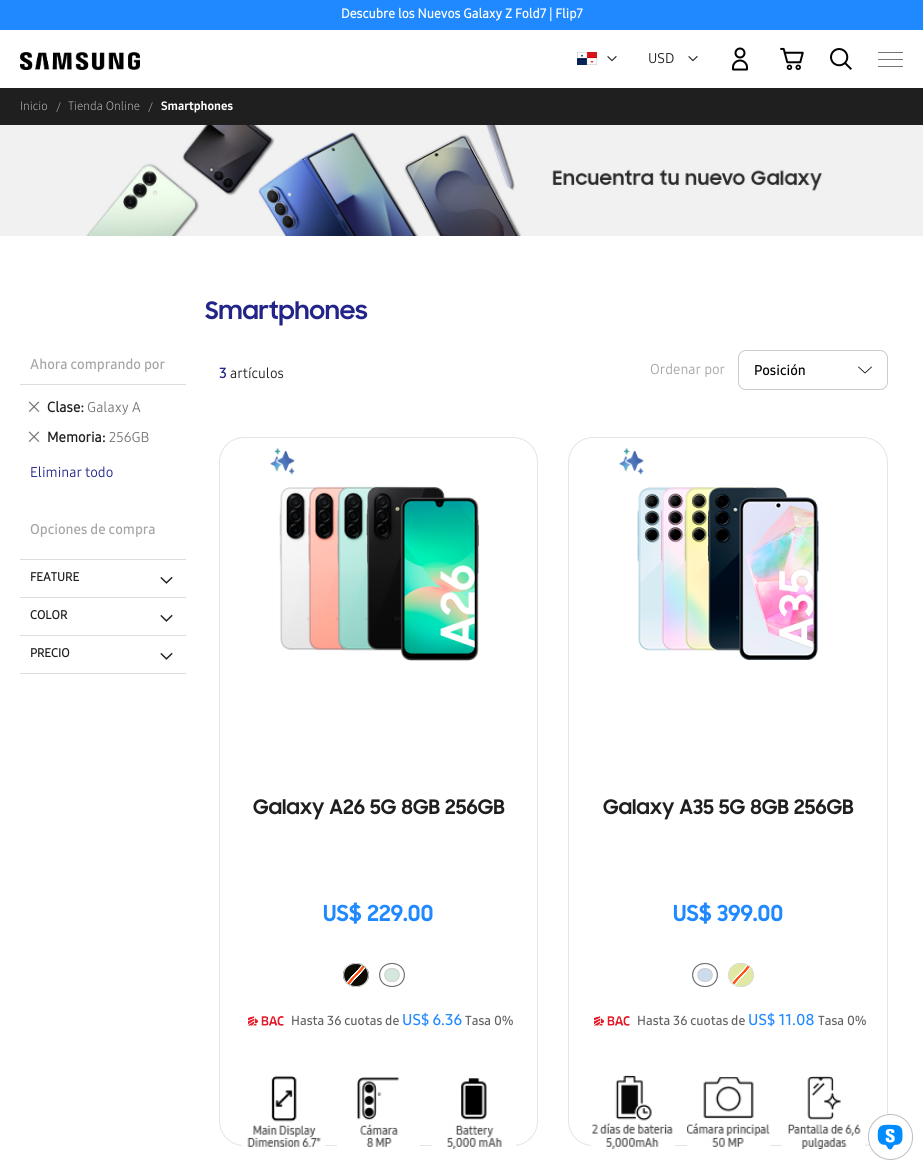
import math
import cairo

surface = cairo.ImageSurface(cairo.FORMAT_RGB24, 923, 1170)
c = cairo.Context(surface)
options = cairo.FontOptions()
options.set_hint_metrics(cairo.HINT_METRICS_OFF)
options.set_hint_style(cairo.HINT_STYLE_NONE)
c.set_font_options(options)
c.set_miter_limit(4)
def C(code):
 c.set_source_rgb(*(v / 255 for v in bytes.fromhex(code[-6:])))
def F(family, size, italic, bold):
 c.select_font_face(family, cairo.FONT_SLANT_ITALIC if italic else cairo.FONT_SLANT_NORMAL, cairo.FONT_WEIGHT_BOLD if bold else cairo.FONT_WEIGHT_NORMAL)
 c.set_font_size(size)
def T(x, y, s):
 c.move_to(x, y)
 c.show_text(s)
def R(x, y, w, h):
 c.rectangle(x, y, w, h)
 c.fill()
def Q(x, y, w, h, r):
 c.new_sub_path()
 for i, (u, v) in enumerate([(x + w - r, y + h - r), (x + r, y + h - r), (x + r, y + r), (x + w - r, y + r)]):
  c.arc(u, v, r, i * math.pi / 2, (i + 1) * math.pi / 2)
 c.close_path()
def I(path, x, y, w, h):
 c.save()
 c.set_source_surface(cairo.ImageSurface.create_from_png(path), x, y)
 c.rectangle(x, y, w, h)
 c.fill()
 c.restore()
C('ffffff')
c.paint()
C('2089ff')
R(0,0,923,30)
F('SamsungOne',13,0,1)
C('ffffff')
T(341,18,'Descubre los Nuevos Galaxy Z Fold7 | Flip7')
I('1.png',20,52,120,18)
I('2.png',577,52,20,13)
I('3.png',607,56,10,6)
F('SamsungOne',14,0,0)
C('1f1f1f')
T(648,63,'USD')
I('3.png',688,56,10,6)
I('4.png',732,47,16,24)
I('5.png',780,47,24,23)
I('6.png',830,48,22,22)
C('757575')
R(878,52,25,1)
R(878,59,25,1)
R(878,66,25,1)
C('1f1f1f')
R(0,88,923,37)
F('SamsungOne Light',12,0,0)
C('bcbcbc')
T(20,110,'Inicio')
T(56,111,'/')
T(68,110,'Tienda Online')
T(148,111,'/')
F('SamsungOne ExtraBold',12,0,0)
C('ffffff')
T(161,110,'Smartphones')
I('7.png',0,125,923,111)
I('8.png',205,300,163,26)
C('dddddd')
R(20,384,166,1)
F('SamsungOne SemiBold',14,0,0)
C('a4a4a4')
T(30,369,'Ahora comprando por')
I('9.png',28,401,12,11)
F('SamsungOne',14,0,1)
C('1f1f1f')
T(47,412,'Clase:')
F('SamsungOne',14,0,0)
C('757575')
T(87,412,'Galaxy A')
I('9.png',28,431,12,11)
F('SamsungOne',14,0,1)
C('1f1f1f')
T(47,442,'Memoria:')
F('SamsungOne',14,0,0)
C('757575')
T(109,442,'256GB')
C('222488')
T(30,477,'Eliminar todo')
C('dddddd')
R(20,559,166,1)
F('SamsungOne SemiBold',14,0,0)
C('a4a4a4')
T(30,534,'Opciones de compra')
C('dddddd')
R(20,597,166,1)
F('SamsungOne',12,0,1)
C('1f1f1f')
T(30,581,'FEATURE')
I('10.png',160,576,13,8)
C('dddddd')
R(20,635,166,1)
C('1f1f1f')
T(30,619,'COLOR')
I('10.png',160,614,13,8)
C('dddddd')
R(20,673,166,1)
C('1f1f1f')
T(30,657,'PRECIO')
I('10.png',160,652,13,8)
F('SamsungOne',14,0,1)
C('222488')
T(219,378,'3')
F('SamsungOne',14,0,0)
C('1f1f1f')
T(230,378,'artículos')
C('a4a4a4')
T(650,374,'Ordenar por')
c.new_path()
c.move_to(858.5,367)
c.line_to(865,373)
c.line_to(871.5,367)
C('000000')
c.set_line_width(.8)
c.set_line_cap(cairo.LINE_CAP_ROUND)
c.set_line_join(cairo.LINE_JOIN_ROUND)
c.stroke()
Q(738.5,350.5,149,39,7.5)
C('cccccc')
c.set_line_width(1)
c.set_line_cap(cairo.LINE_CAP_BUTT)
c.set_line_join(cairo.LINE_JOIN_MITER)
c.stroke()
F('SamsungOne SemiBold',14,0,0)
C('000000')
T(754,375,'Posición')
Q(219.5,437.5,318,708,24.5)
C('e4e4e4')
c.stroke()
I('11.png',270,448,25,27)
I('12.png',279,486,200,175)
I('13.png',253,799,252,21)
I('14.png',323,902,110,22)
C('0c0c04')
c.new_path()
c.move_to(356,963)
c.curve_to(363,963,369,968.5,369,975)
c.curve_to(369,981.5,363,987,356,987)
c.curve_to(349,987,343,981.5,343,975)
c.curve_to(343,968.5,349,963,356,963)
c.close_path()
c.fill()
c.new_path()
c.move_to(356,963.5)
c.curve_to(372.5,963.5,372.5,986.5,356,986.5)
c.curve_to(339.5,986.5,339.5,963.5,356,963.5)
c.close_path()
C('dadada')
c.stroke()
gradient = cairo.LinearGradient(344,964,368,986)
gradient.add_color_stop_rgba(0,1,1,1,0)
gradient.add_color_stop_rgba(.42,1,1,1,0)
gradient.add_color_stop_rgba(.43,1,1,1,1)
gradient.add_color_stop_rgba(.46,1,1,1,1)
gradient.add_color_stop_rgba(.47,1,0.322,0.086,1)
gradient.add_color_stop_rgba(.53,1,0.322,0.086,1)
gradient.add_color_stop_rgba(.54,1,1,1,1)
gradient.add_color_stop_rgba(.57,1,1,1,1)
gradient.add_color_stop_rgba(.58,1,1,1,0)
gradient.add_color_stop_rgba(1,1,1,1,0)
c.set_source(gradient)
c.new_path()
c.move_to(356,964)
c.curve_to(372,964,372,986,356,986)
c.curve_to(340,986,340,964,356,964)
c.close_path()
c.fill()
C('d5e8dd')
c.new_path()
c.move_to(392,963)
c.curve_to(399,963,405,968.5,405,975)
c.curve_to(405,981.5,399,987,392,987)
c.curve_to(385,987,379,981.5,379,975)
c.curve_to(379,968.5,385,963,392,963)
c.close_path()
c.fill()
c.new_path()
c.move_to(392,966.5)
c.curve_to(404.5,966.5,404.5,983.5,392,983.5)
c.curve_to(379.5,983.5,379.5,966.5,392,966.5)
c.close_path()
C('cccccc')
c.set_line_width(5)
c.stroke()
c.new_path()
c.move_to(392,966)
c.curve_to(405,966,405,984,392,984)
c.curve_to(379,984,379,966,392,966)
c.close_path()
C('ffffff')
c.set_line_width(4)
c.stroke()
c.new_path()
c.move_to(392,963.5)
c.curve_to(408.5,963.5,408.5,986.5,392,986.5)
c.curve_to(375.5,986.5,375.5,963.5,392,963.5)
c.close_path()
C('666666')
c.set_line_width(1)
c.stroke()
I('15.png',248,1016,36,10)
F('SamsungOne SemiBold',13,0,0)
C('626262')
T(291,1025,'Hasta 36 cuotas de')
F('SamsungOne SemiBold',15.5,0,0)
C('2089ff')
T(402,1025,'US$ 6.36')
F('SamsungOne SemiBold',13,0,0)
C('626262')
T(465,1025,'Tasa 0%')
I('16.png',242,1075,83,72)
I('17.png',337,1077,83,70)
I('18.png',432,1078,84,71)
Q(568.5,437.5,319,708,24.5)
C('e4e4e4')
c.stroke()
I('11.png',619,448,25,27)
I('19.png',637,487,182,173)
I('20.png',603,799,251,21)
I('21.png',673,902,110,22)
C('ccdcec')
c.new_path()
c.move_to(705,963)
c.curve_to(712,963,718,968.5,718,975)
c.curve_to(718,981.5,712,987,705,987)
c.curve_to(698,987,692,981.5,692,975)
c.curve_to(692,968.5,698,963,705,963)
c.close_path()
c.fill()
c.new_path()
c.move_to(705,966.5)
c.curve_to(717.5,966.5,717.5,983.5,705,983.5)
c.curve_to(692.5,983.5,692.5,966.5,705,966.5)
c.close_path()
C('cccccc')
c.set_line_width(5)
c.stroke()
c.new_path()
c.move_to(705,966)
c.curve_to(718,966,718,984,705,984)
c.curve_to(692,984,692,966,705,966)
c.close_path()
C('ffffff')
c.set_line_width(4)
c.stroke()
c.new_path()
c.move_to(705,963.5)
c.curve_to(721.5,963.5,721.5,986.5,705,986.5)
c.curve_to(688.5,986.5,688.5,963.5,705,963.5)
c.close_path()
C('666666')
c.set_line_width(1)
c.stroke()
C('e1e8a2')
c.new_path()
c.move_to(741,963)
c.curve_to(748,963,754,968.5,754,975)
c.curve_to(754,981.5,748,987,741,987)
c.curve_to(734,987,728,981.5,728,975)
c.curve_to(728,968.5,734,963,741,963)
c.close_path()
c.fill()
c.new_path()
c.move_to(741,963.5)
c.curve_to(757.5,963.5,757.5,986.5,741,986.5)
c.curve_to(724.5,986.5,724.5,963.5,741,963.5)
c.close_path()
C('dadada')
c.stroke()
gradient = cairo.LinearGradient(729,964,753,986)
gradient.add_color_stop_rgba(0,1,1,1,0)
gradient.add_color_stop_rgba(.42,1,1,1,0)
gradient.add_color_stop_rgba(.43,1,1,1,1)
gradient.add_color_stop_rgba(.46,1,1,1,1)
gradient.add_color_stop_rgba(.47,1,0.322,0.086,1)
gradient.add_color_stop_rgba(.53,1,0.322,0.086,1)
gradient.add_color_stop_rgba(.54,1,1,1,1)
gradient.add_color_stop_rgba(.57,1,1,1,1)
gradient.add_color_stop_rgba(.58,1,1,1,0)
gradient.add_color_stop_rgba(1,1,1,1,0)
c.set_source(gradient)
c.new_path()
c.move_to(741,964)
c.curve_to(757,964,757,986,741,986)
c.curve_to(725,986,725,964,741,964)
c.close_path()
c.fill()
I('15.png',594,1016,36,10)
C('626262')
T(637,1025,'Hasta 36 cuotas de')
F('SamsungOne SemiBold',15.5,0,0)
C('2089ff')
T(748,1025,'US$ 11.08')
F('SamsungOne SemiBold',13,0,0)
C('626262')
T(818,1025,'Tasa 0%')
I('22.png',591,1075,84,74)
I('23.png',687,1077,83,70)
I('24.png',782,1076,83,73)
C('ffffff')
Q(868,1114,45,46,22.5)
c.fill()
I('25.png',877,1124,26,26)
Q(868.5,1114.5,44,45,22)
C('bebebe')
c.stroke()
surface.write_to_png('o.png')
